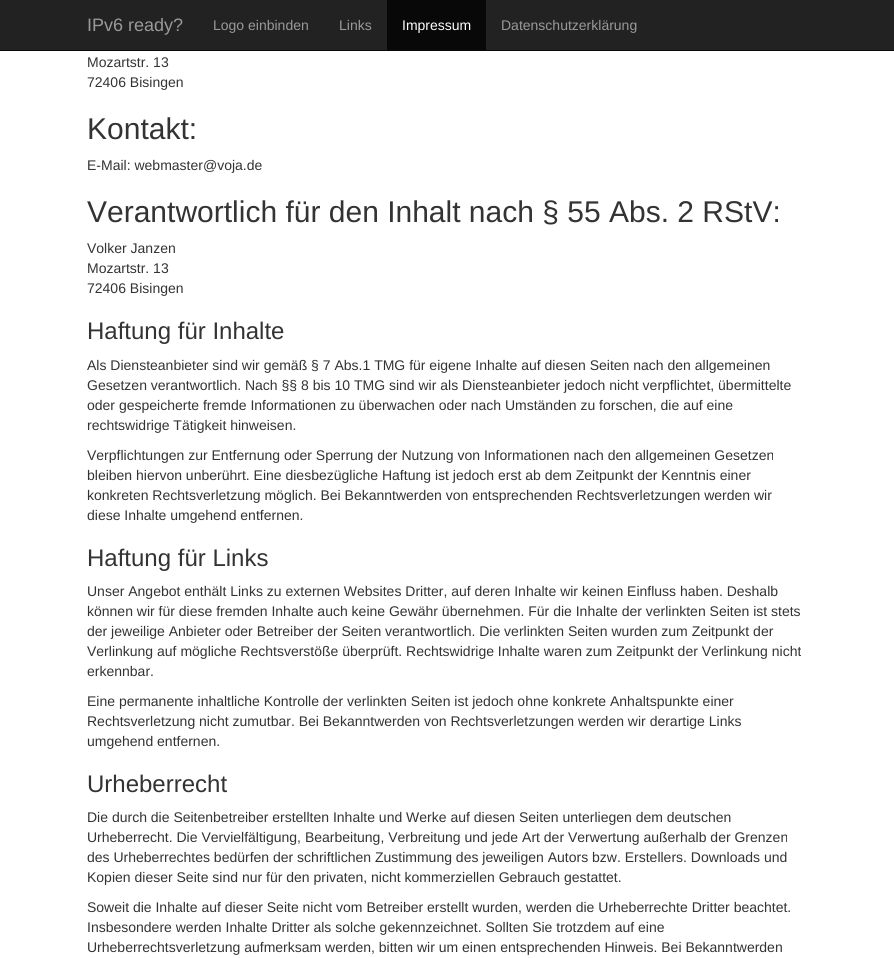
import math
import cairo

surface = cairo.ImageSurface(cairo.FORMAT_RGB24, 894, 958)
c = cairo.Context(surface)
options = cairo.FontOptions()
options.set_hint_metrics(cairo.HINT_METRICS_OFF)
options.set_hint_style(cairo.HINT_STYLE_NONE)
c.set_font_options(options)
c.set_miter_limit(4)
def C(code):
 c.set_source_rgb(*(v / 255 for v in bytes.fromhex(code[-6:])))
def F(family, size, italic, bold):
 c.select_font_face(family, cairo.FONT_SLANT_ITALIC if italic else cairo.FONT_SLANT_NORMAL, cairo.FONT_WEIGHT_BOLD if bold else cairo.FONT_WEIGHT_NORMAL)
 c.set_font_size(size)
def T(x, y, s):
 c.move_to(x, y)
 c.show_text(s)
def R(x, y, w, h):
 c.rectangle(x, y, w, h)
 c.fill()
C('ffffff')
c.paint()
C('222222')
R(0,0,894,50)
C('080808')
R(0,50,894,1)
F('Liberation Sans',18,0,0)
C('999999')
T(87,31,'IPv6 ready?')
F('Liberation Sans',14,0,0)
T(213,30,'Logo einbinden')
T(339,30,'Links')
C('080808')
R(387,0,99,50)
C('ffffff')
T(402,30,'Impressum')
C('999999')
T(501,30,'Datenschutzerklärung')
C('333333')
T(87,67,'Mozartstr. 13')
T(87,87,'72406 Bisingen')
F('Liberation Sans',30,0,0)
T(87,139,'Kontakt:')
F('Liberation Sans',14,0,0)
T(87,170,'E-Mail: webmaster@voja.de')
F('Liberation Sans',30,0,0)
T(87,222,'Verantwortlich für den Inhalt nach § 55 Abs. 2 RStV:')
F('Liberation Sans',14,0,0)
T(87,253,'Volker Janzen')
T(87,273,'Mozartstr. 13')
T(87,293,'72406 Bisingen')
F('Liberation Sans',24,0,0)
T(87,339,'Haftung für Inhalte')
F('Liberation Sans',14,0,0)
T(87,370,'Als Diensteanbieter sind wir gemäß § 7 Abs.1 TMG für eigene Inhalte auf diesen Seiten nach den allgemeinen')
T(87,390,'Gesetzen verantwortlich. Nach §§ 8 bis 10 TMG sind wir als Diensteanbieter jedoch nicht verpflichtet, übermittelte')
T(87,410,'oder gespeicherte fremde Informationen zu überwachen oder nach Umständen zu forschen, die auf eine')
T(87,430,'rechtswidrige Tätigkeit hinweisen.')
T(87,460,'Verpflichtungen zur Entfernung oder Sperrung der Nutzung von Informationen nach den allgemeinen Gesetzen')
T(87,480,'bleiben hiervon unberührt. Eine diesbezügliche Haftung ist jedoch erst ab dem Zeitpunkt der Kenntnis einer')
T(87,500,'konkreten Rechtsverletzung möglich. Bei Bekanntwerden von entsprechenden Rechtsverletzungen werden wir')
T(87,520,'diese Inhalte umgehend entfernen.')
F('Liberation Sans',24,0,0)
T(87,566,'Haftung für Links')
F('Liberation Sans',14,0,0)
T(87,596,'Unser Angebot enthält Links zu externen Websites Dritter, auf deren Inhalte wir keinen Einfluss haben. Deshalb')
T(87,616,'können wir für diese fremden Inhalte auch keine Gewähr übernehmen. Für die Inhalte der verlinkten Seiten ist stets')
T(87,636,'der jeweilige Anbieter oder Betreiber der Seiten verantwortlich. Die verlinkten Seiten wurden zum Zeitpunkt der')
T(87,656,'Verlinkung auf mögliche Rechtsverstöße überprüft. Rechtswidrige Inhalte waren zum Zeitpunkt der Verlinkung nicht')
T(87,676,'erkennbar.')
T(87,706,'Eine permanente inhaltliche Kontrolle der verlinkten Seiten ist jedoch ohne konkrete Anhaltspunkte einer')
T(87,726,'Rechtsverletzung nicht zumutbar. Bei Bekanntwerden von Rechtsverletzungen werden wir derartige Links')
T(87,746,'umgehend entfernen.')
F('Liberation Sans',24,0,0)
T(87,792,'Urheberrecht')
F('Liberation Sans',14,0,0)
T(87,822,'Die durch die Seitenbetreiber erstellten Inhalte und Werke auf diesen Seiten unterliegen dem deutschen')
T(87,842,'Urheberrecht. Die Vervielfältigung, Bearbeitung, Verbreitung und jede Art der Verwertung außerhalb der Grenzen')
T(87,862,'des Urheberrechtes bedürfen der schriftlichen Zustimmung des jeweiligen Autors bzw. Erstellers. Downloads und')
T(87,882,'Kopien dieser Seite sind nur für den privaten, nicht kommerziellen Gebrauch gestattet.')
T(87,912,'Soweit die Inhalte auf dieser Seite nicht vom Betreiber erstellt wurden, werden die Urheberrechte Dritter beachtet.')
T(87,932,'Insbesondere werden Inhalte Dritter als solche gekennzeichnet. Sollten Sie trotzdem auf eine')
T(87,952,'Urheberrechtsverletzung aufmerksam werden, bitten wir um einen entsprechenden Hinweis. Bei Bekanntwerden')
surface.write_to_png('o.png')
